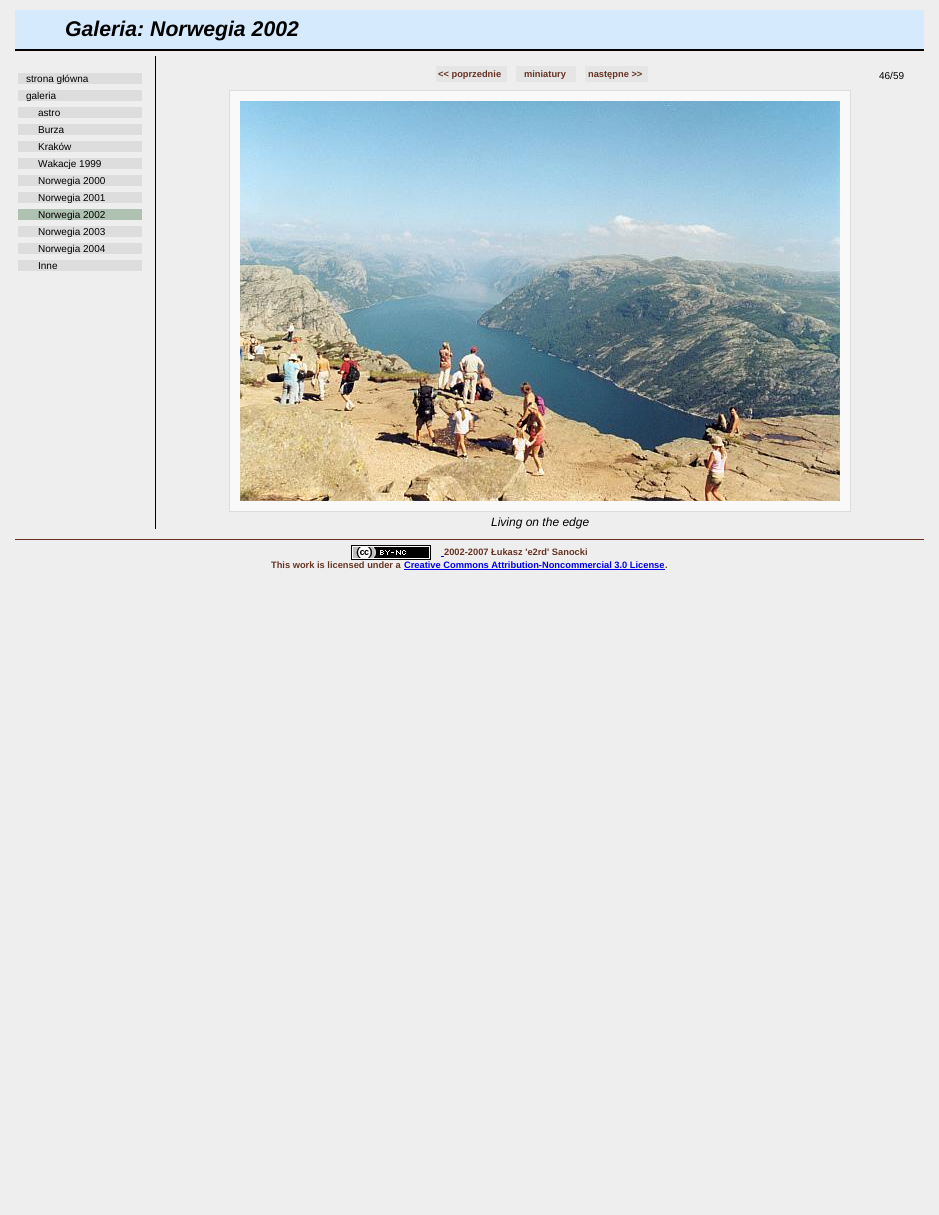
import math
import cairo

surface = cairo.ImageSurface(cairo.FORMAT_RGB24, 939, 1215)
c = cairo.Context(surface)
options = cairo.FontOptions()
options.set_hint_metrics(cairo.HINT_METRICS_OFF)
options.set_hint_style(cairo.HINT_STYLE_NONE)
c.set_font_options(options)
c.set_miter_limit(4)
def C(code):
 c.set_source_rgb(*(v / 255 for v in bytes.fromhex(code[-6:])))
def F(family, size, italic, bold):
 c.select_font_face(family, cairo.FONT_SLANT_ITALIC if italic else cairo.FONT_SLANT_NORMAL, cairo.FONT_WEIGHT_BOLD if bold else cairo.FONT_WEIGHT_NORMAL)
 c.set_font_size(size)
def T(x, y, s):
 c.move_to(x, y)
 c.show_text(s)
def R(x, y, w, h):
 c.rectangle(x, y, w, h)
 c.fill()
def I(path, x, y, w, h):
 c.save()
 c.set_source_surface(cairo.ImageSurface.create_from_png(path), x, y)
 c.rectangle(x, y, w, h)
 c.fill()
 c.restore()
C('eeeeee')
c.paint()
C('d6eafe')
R(15,10,909,39)
C('000000')
R(15,49,909,2)
F('Liberation Sans',21.25,1,1)
T(65,36,'Galeria: Norwegia 2002')
C('dddddd')
R(18,73,124,11)
F('Liberation Sans',10,0,0)
C('000000')
T(26,82,'strona główna')
C('dddddd')
R(18,90,124,11)
C('000000')
T(26,99,'galeria')
C('dddddd')
R(18,107,124,11)
C('000000')
T(38,116,'astro')
C('dddddd')
R(18,124,124,11)
C('000000')
T(38,133,'Burza')
C('dddddd')
R(18,141,124,11)
C('000000')
T(38,150,'Kraków')
C('dddddd')
R(18,158,124,11)
C('000000')
T(38,167,'Wakacje 1999')
C('dddddd')
R(18,175,124,11)
C('000000')
T(38,184,'Norwegia 2000')
C('dddddd')
R(18,192,124,11)
C('000000')
T(38,201,'Norwegia 2001')
C('afc1b1')
R(18,209,124,11)
C('000000')
T(38,218,'Norwegia 2002')
C('dddddd')
R(18,226,124,11)
C('000000')
T(38,235,'Norwegia 2003')
C('dddddd')
R(18,243,124,11)
C('000000')
T(38,252,'Norwegia 2004')
C('dddddd')
R(18,260,124,11)
C('000000')
T(38,269,'Inne')
R(155,56,1,473)
C('e5e5e5')
R(436,66,71,16)
F('Liberation Sans',9.3,0,1)
C('663322')
T(438,77,'<< poprzednie')
C('e5e5e5')
R(516,66,60,16)
C('663322')
T(524,77,'miniatury')
C('e5e5e5')
R(585,66,63,16)
C('663322')
T(588,77,'następne >>')
F('Liberation Sans',10,0,0)
C('000000')
T(879,79,'46/59')
C('f9f9f9')
c.rectangle(229.5,90.5,621,421)
c.fill_preserve()
C('dddddd')
c.set_line_width(1)
c.stroke()
I('1.png',240,101,600,400)
F('Liberation Sans',12,1,0)
C('000000')
T(491,526,'Living on the edge')
C('663322')
R(15,539,909,1)
I('2.png',351,545,80,15)
F('Liberation Sans',9.3,0,1)
T(444,555,'2002-2007 Łukasz \'e2rd\' Sanocki')
C('0000ee')
R(441,556,3,1)
C('663322')
T(271,568,'This work is licensed under a')
C('0000ee')
T(404,568,'Creative Commons Attribution-Noncommercial 3.0 License')
R(404,569,261,1)
C('663322')
T(665,568,'.')
surface.write_to_png('o.png')
